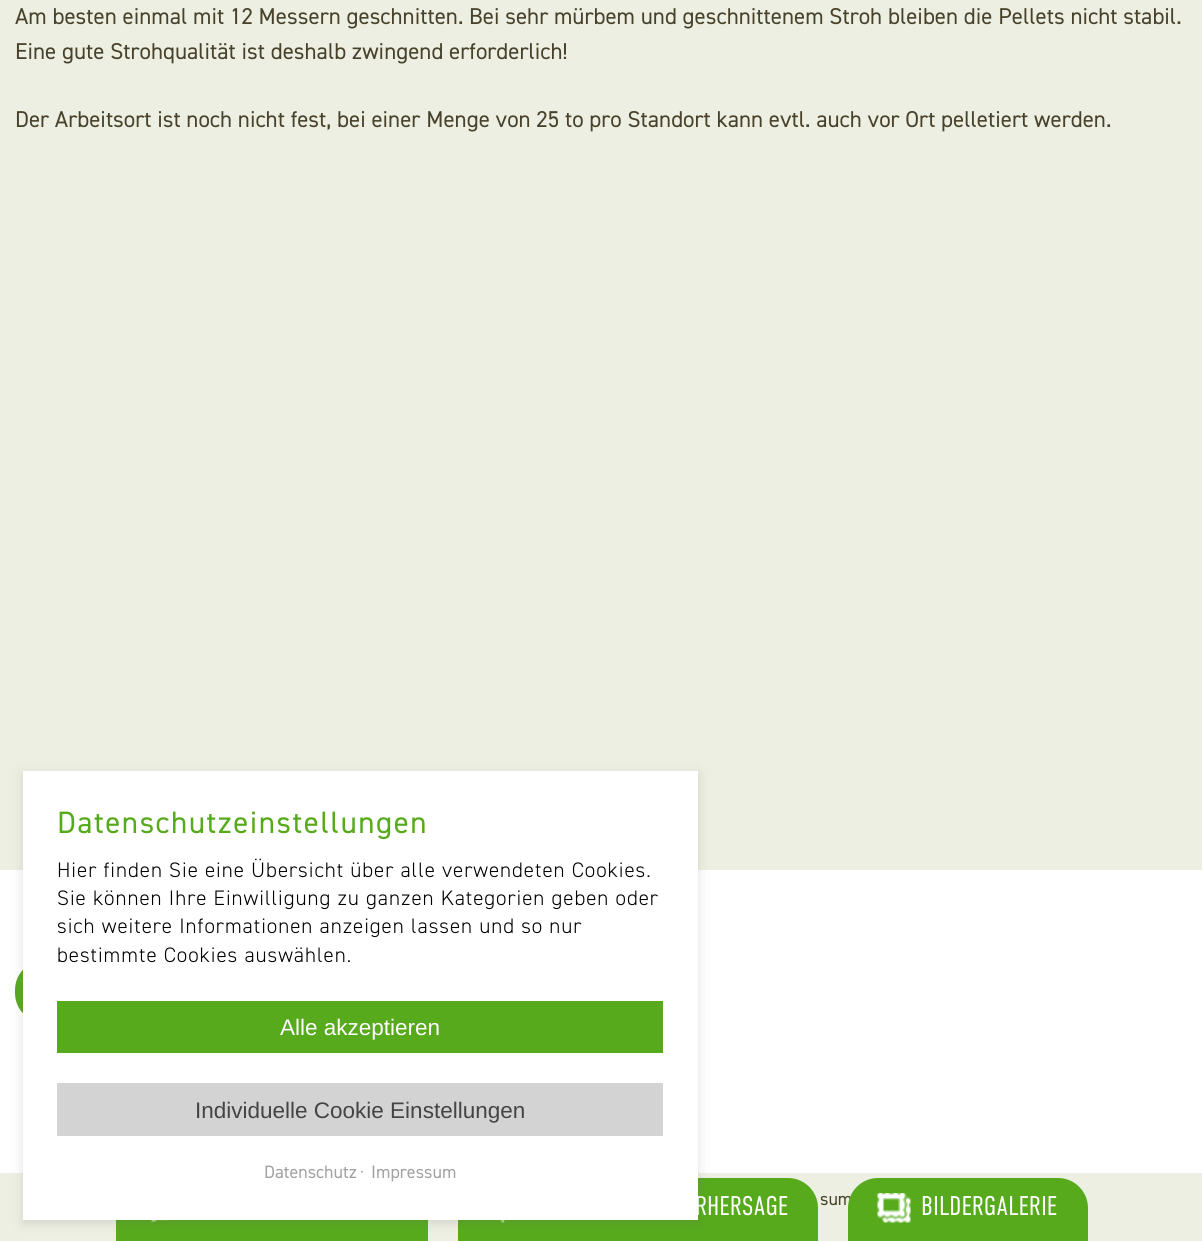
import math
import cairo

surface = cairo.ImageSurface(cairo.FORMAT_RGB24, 1202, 1241)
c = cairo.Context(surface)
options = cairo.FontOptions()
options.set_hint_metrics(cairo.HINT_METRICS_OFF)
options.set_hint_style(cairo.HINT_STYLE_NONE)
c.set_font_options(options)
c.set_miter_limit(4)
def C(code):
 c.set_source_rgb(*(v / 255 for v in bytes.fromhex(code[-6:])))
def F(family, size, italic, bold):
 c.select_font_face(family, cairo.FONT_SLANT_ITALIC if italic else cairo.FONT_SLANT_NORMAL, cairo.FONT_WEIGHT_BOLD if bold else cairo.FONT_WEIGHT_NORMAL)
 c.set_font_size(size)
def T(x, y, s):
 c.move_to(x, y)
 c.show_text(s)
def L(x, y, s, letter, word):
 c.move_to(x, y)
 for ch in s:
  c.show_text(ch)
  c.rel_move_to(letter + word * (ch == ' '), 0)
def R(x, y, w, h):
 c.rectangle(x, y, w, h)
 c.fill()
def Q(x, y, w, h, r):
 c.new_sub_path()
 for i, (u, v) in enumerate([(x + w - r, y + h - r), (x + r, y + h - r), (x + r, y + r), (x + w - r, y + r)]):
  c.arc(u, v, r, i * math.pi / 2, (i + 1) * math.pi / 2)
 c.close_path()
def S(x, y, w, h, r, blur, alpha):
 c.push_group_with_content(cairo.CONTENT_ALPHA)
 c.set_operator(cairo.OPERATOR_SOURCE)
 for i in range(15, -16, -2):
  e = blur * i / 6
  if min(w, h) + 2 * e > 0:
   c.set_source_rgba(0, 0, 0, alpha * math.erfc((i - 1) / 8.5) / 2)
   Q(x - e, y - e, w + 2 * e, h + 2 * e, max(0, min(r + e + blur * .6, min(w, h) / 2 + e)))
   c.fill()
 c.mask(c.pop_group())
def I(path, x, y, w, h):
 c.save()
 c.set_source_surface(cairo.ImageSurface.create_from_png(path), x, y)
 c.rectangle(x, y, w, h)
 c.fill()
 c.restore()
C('ffffff')
c.paint()
C('ecefe1')
R(0,0,1202,870)
F('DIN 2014',22.95,0,0)
C('48422c')
T(15,24,'Am besten einmal mit 12 Messern geschnitten. Bei sehr mürbem und geschnittenem Stroh bleiben die Pellets nicht stabil.')
T(15,59,'Eine gute Strohqualität ist deshalb zwingend erforderlich!')
T(15,127,'Der Arbeitsort ist noch nicht fest, bei einer Menge von 25 to pro Standort kann evtl. auch vor Ort pelletiert werden.')
C('56aa1c')
Q(16,961,141,61,29)
c.fill_preserve()
c.stroke()
C('ecefe1')
R(0,1173,1202,68)
C('56aa1c')
c.new_path()
c.move_to(488,1178)
c.line_to(788,1178)
c.curve_to(804.5,1178,818,1191.5,818,1208)
c.line_to(818,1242)
c.line_to(458,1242)
c.line_to(458,1208)
c.curve_to(458,1191.5,471.5,1178,488,1178)
c.close_path()
c.fill()
F('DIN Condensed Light',27,0,0)
C('ffffff')
T(695,1215,'RHERSAGE')
I('1.png',500,1220,5,3)
F('DIN 2014',18,0,0)
C('48422c')
T(820,1205,'sum')
C('56aa1c')
c.new_path()
c.move_to(878,1178)
c.line_to(1058,1178)
c.curve_to(1074.5,1178,1088,1191.5,1088,1208)
c.line_to(1088,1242)
c.line_to(848,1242)
c.line_to(848,1208)
c.curve_to(848,1191.5,861.5,1178,878,1178)
c.close_path()
c.fill()
I('2.png',877,1193,34,30)
F('DIN Condensed Light',27,0,0)
C('ffffff')
T(921,1215,'BILDERGALERIE')
C('56aa1c')
R(116,1220,312,21)
I('3.png',151,1220,17,3)
C('636363')
S(23,774,675,449,0,6,.2)
C('ffffff')
R(23,771,675,449)
F('DIN 2014',31,0,0)
C('56aa1c')
L(57,833,'Datenschutzeinstellungen',1.5,0)
F('DIN 2014 Light',21,0,0)
C('000000')
L(57,877,'Hier finden Sie eine Übersicht über alle verwendeten Cookies.',.95,0)
L(57,905,'Sie können Ihre Einwilligung zu ganzen Kategorien geben oder',.95,0)
L(57,933,'sich weitere Informationen anzeigen lassen und so nur',.95,0)
L(57,962,'bestimmte Cookies auswählen.',.95,0)
C('56aa1c')
R(57,1001,606,52)
F('Liberation Sans',22.5,0,0)
C('ffffff')
T(280,1035,'Alle akzeptieren')
C('d3d3d3')
R(57,1083,606,53)
C('444444')
T(195,1118,'Individuelle Cookie Einstellungen')
F('DIN 2014',18,0,0)
C('a2a2a2')
T(264,1178,'Datenschutz')
T(360,1178,'·')
T(371,1178,'Impressum')
surface.write_to_png('o.png')
